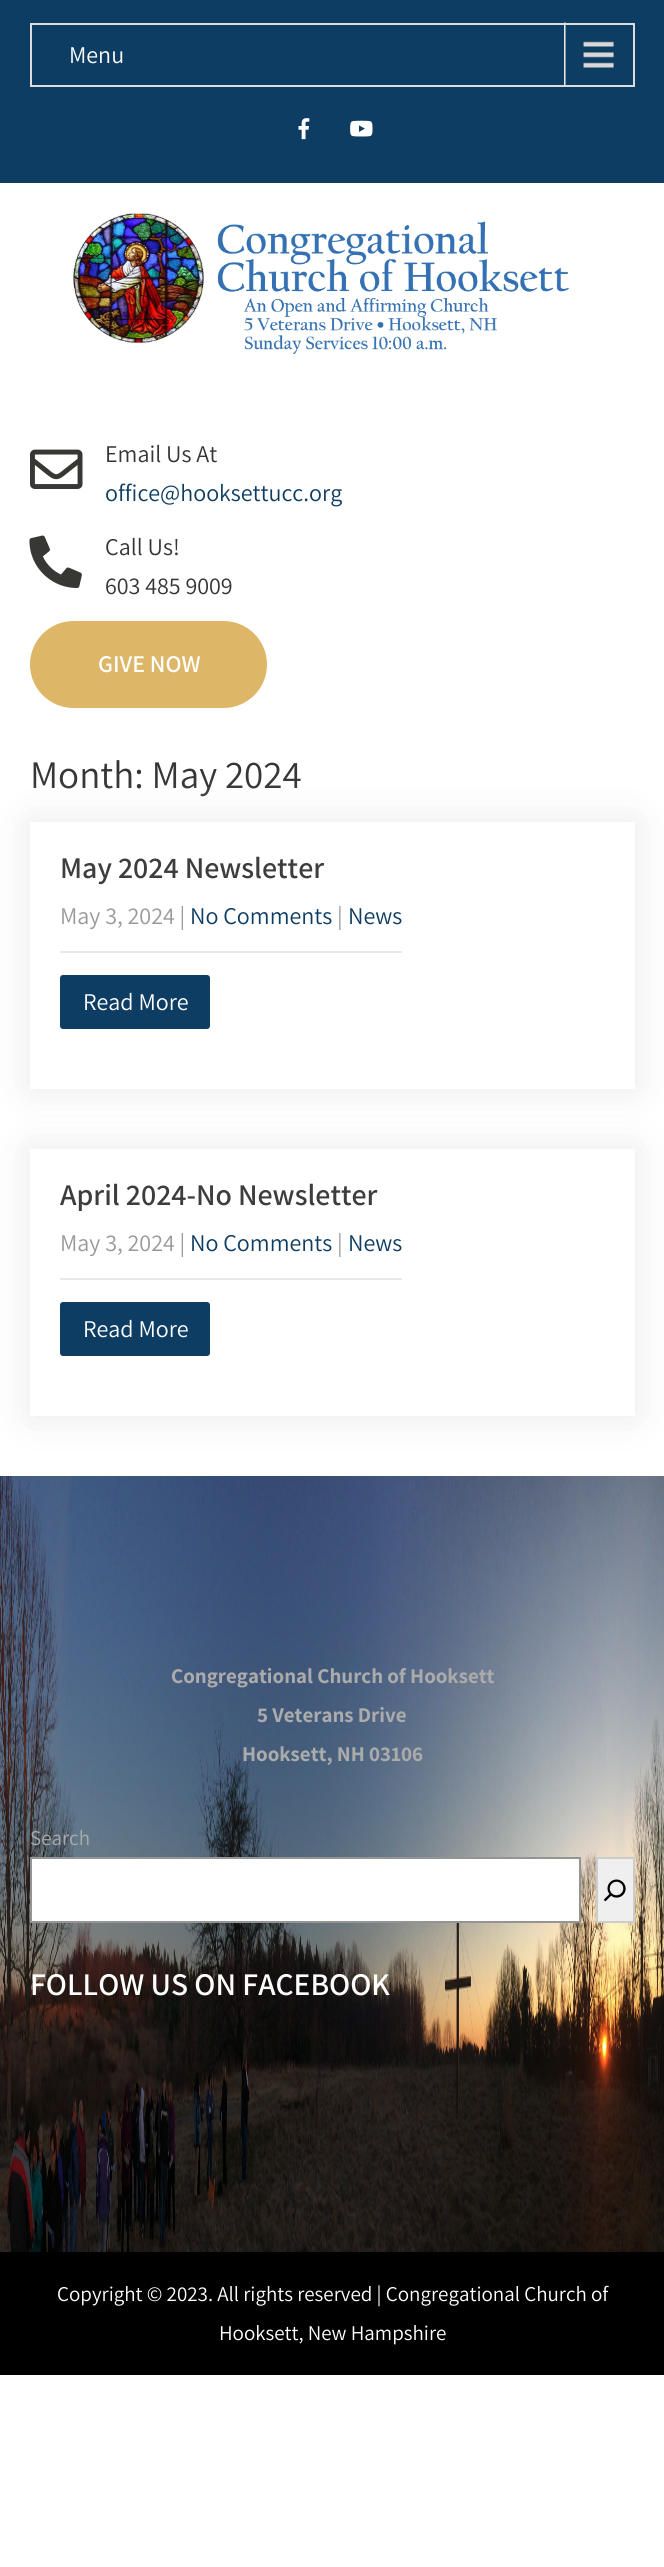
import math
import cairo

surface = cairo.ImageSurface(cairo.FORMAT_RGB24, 664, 2567)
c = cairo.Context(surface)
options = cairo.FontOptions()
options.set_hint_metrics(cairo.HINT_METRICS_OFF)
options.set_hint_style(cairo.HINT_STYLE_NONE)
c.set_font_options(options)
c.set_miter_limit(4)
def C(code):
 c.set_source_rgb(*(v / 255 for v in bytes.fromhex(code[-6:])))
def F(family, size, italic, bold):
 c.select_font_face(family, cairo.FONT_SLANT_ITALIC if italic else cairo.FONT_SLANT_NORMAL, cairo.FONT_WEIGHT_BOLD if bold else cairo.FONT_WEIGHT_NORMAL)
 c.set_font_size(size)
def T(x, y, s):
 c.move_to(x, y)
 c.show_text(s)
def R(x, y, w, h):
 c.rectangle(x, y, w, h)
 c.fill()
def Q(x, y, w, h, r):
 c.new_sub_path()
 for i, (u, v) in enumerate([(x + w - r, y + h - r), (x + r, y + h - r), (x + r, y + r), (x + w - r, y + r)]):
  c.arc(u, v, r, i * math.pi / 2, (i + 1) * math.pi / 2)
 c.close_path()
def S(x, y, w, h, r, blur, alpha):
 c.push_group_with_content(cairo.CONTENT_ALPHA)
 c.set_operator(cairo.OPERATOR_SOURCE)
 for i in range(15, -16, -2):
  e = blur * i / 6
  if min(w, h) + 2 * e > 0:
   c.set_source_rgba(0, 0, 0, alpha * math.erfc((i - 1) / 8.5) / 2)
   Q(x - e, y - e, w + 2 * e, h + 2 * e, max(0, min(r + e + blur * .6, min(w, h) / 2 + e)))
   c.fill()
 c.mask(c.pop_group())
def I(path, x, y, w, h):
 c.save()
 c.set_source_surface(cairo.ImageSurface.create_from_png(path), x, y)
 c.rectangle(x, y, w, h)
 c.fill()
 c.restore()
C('ffffff')
c.paint()
C('0e3d63')
R(0,0,664,183)
I('1.png',564,22,50,63)
c.rectangle(31,24,603,62)
C('dddddd')
c.stroke()
F('Assistant ExtraLight',24,0,0)
C('ffffff')
T(69,63,'Menu')
I('2.png',298,118,12,22)
I('3.png',350,120,23,17)
I('4.png',73,213,496,141)
I('5.png',30,449,53,40)
C('353535')
T(105,462,'Email Us At')
C('0e3d63')
T(105,501,'office@hooksettucc.org')
I('6.png',29,535,53,53)
C('353535')
T(105,555,'Call Us!')
T(105,594,'603 485 9009')
C('ddb667')
Q(30,621,237,87,43.5)
c.fill()
F('Assistant SemiBold',24,0,0)
C('ffffff')
T(98,672,'GIVE NOW')
F('Assistant ExtraLight',39,0,0)
C('353535')
T(30,788,'Month: May 2024')
c.save()
c.set_fill_rule(cairo.FILL_RULE_EVEN_ODD)
c.new_path()
c.move_to(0,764)
c.line_to(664,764)
c.line_to(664,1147)
c.line_to(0,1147)
c.close_path()
c.move_to(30,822)
c.line_to(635,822)
c.line_to(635,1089)
c.line_to(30,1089)
c.close_path()
c.clip()
C('e9e9e9')
S(30,822,605,267,0,19,1)
c.restore()
F('Assistant SemiBold',30,0,0)
C('3d3d3d')
T(60,878,'May 2024 Newsletter')
C('e8e8e8')
R(60,951,342,2)
F('Assistant ExtraLight',24,0,0)
C('999999')
T(60,924,'May 3, 2024 |')
C('0e3d63')
T(190,924,'No Comments')
C('999999')
T(337,924,'|')
C('0e3d63')
T(348,924,'News')
Q(60,975,150,54,3)
c.fill()
C('ffffff')
T(83,1010,'Read More')
c.save()
c.set_fill_rule(cairo.FILL_RULE_EVEN_ODD)
c.new_path()
c.move_to(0,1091)
c.line_to(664,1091)
c.line_to(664,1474)
c.line_to(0,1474)
c.close_path()
c.move_to(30,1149)
c.line_to(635,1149)
c.line_to(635,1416)
c.line_to(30,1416)
c.close_path()
c.clip()
C('e9e9e9')
S(30,1149,605,267,0,19,1)
c.restore()
F('Assistant SemiBold',30,0,0)
C('3d3d3d')
T(60,1205,'April 2024-No Newsletter')
C('e8e8e8')
R(60,1278,342,2)
F('Assistant ExtraLight',24,0,0)
C('999999')
T(60,1251,'May 3, 2024 |')
C('0e3d63')
T(190,1251,'No Comments')
C('999999')
T(337,1251,'|')
C('0e3d63')
T(348,1251,'News')
Q(60,1302,150,54,3)
c.fill()
C('ffffff')
T(83,1337,'Read More')
I('7.png',0,1476,664,776)
F('Assistant',21,0,1)
C('ababab')
T(171,1683,'Congregational Church of Hooksett')
T(257,1722,'5 Veterans Drive')
T(242,1761,'Hooksett, NH 03106')
F('Assistant ExtraLight',21,0,0)
T(30,1845,'Search')
C('ffffff')
c.rectangle(31,1858,549,64)
c.fill_preserve()
C('949494')
c.stroke()
C('efefef')
c.rectangle(597,1858,37,64)
c.fill_preserve()
C('cccccc')
c.stroke()
I('8.png',603,1879,23,23)
F('Assistant SemiBold',31.5,0,0)
C('ffffff')
T(30,1995,'FOLLOW US ON FACEBOOK')
C('000000')
R(0,2252,664,123)
F('Assistant ExtraLight',21,0,0)
C('ffffff')
T(57,2301,'Copyright © 2023. All rights reserved | Congregational Church of')
T(219,2340,'Hooksett, New Hampshire')
surface.write_to_png('o.png')
